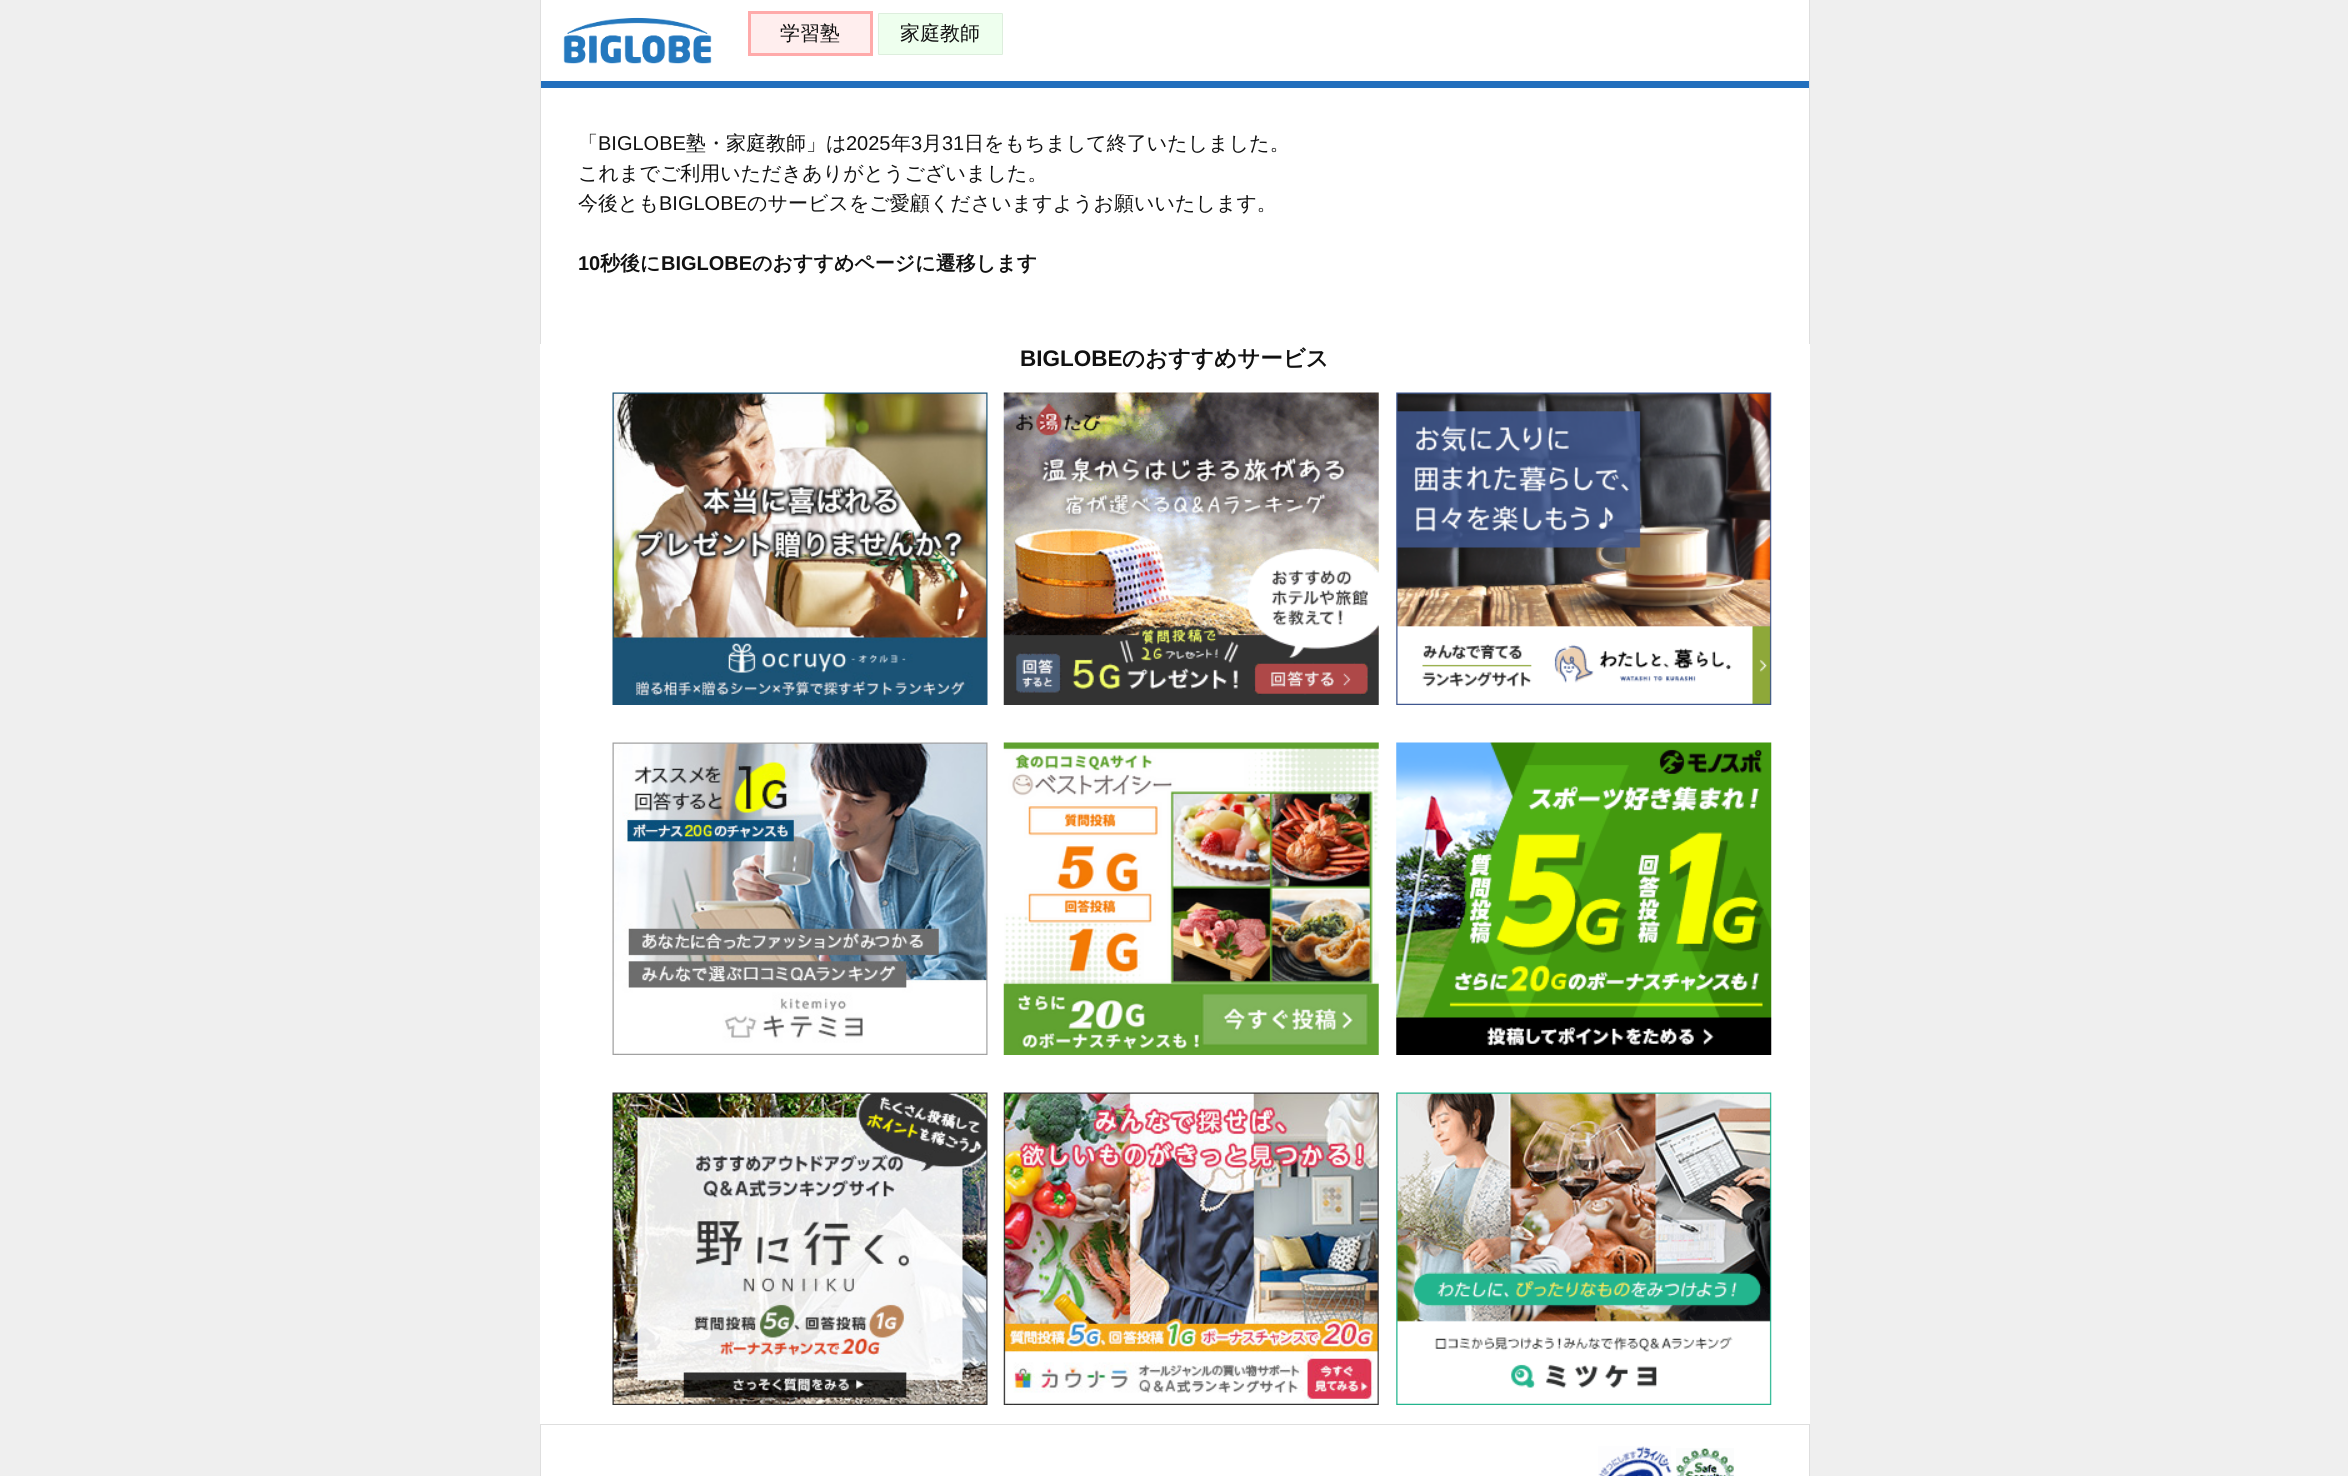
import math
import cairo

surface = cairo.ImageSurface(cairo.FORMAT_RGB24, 2348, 1476)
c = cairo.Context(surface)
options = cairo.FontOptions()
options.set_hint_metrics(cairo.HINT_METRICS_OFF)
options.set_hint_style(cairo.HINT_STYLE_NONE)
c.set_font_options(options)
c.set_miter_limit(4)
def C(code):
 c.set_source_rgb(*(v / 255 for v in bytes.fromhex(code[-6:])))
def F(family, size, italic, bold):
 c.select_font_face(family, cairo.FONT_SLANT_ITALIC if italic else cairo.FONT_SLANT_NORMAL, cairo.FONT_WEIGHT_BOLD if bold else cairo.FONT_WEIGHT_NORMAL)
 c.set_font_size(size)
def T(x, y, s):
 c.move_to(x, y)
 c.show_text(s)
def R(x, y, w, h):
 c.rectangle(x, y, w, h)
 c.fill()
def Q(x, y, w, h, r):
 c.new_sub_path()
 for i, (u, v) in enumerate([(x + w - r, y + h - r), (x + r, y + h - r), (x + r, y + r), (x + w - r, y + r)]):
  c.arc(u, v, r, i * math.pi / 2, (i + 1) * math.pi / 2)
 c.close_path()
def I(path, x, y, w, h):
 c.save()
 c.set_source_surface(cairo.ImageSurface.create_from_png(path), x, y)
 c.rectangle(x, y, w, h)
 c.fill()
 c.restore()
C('efefef')
c.paint()
C('ffffff')
R(540,0,1270,1476)
C('dedede')
R(1809,0,1,344)
R(540,0,1,344)
C('226fbd')
R(541,81,1268,7)
I('1.png',563,17,149,47)
C('ffeeee')
c.rectangle(749.5,12.5,122,42)
c.fill_preserve()
C('ffaaaa')
c.set_line_width(3)
c.stroke()
F('WenQuanYi Zen Hei Medium',20,0,0)
C('111111')
T(780,40,'学習塾')
C('eeffee')
Q(878.5,13.5,124,41,.5)
c.fill_preserve()
C('ddeedd')
c.set_line_width(1)
c.stroke()
C('111111')
T(900,40,'家庭教師')
T(578,150,'「')
F('Liberation Sans',20,0,0)
T(598,150,'BIGLOBE')
F('WenQuanYi Zen Hei Medium',20,0,0)
T(686,150,'塾・家庭教師」は')
F('Liberation Sans',20,0,0)
T(846,150,'2025')
F('WenQuanYi Zen Hei Medium',20,0,0)
T(891,150,'年')
F('Liberation Sans',20,0,0)
T(911,150,'3')
F('WenQuanYi Zen Hei Medium',20,0,0)
T(922,150,'月')
F('Liberation Sans',20,0,0)
T(942,150,'31')
F('WenQuanYi Zen Hei Medium',20,0,0)
T(964,150,'日をもちまして終了いたしました。')
T(578,180,'これまでご利用いただきありがとうございました。')
T(578,210,'今後とも')
F('Liberation Sans',20,0,0)
T(659,210,'BIGLOBE')
F('WenQuanYi Zen Hei Medium',20,0,0)
T(747,210,'のサービスをご愛顧くださいますようお願いいたします。')
F('Liberation Sans',20,0,1)
T(578,270,'10')
F('WenQuanYi Zen Hei',20,0,1)
T(600,270,'秒後に')
F('Liberation Sans',20,0,1)
T(661,270,'BIGLOBE')
F('WenQuanYi Zen Hei',20,0,1)
T(752,270,'のおすすめページに遷移します')
F('Liberation Sans',22.5,0,1)
T(1020,366,'BIGLOBE')
F('WenQuanYi Zen Hei',22.5,0,1)
T(1122,366,'のおすすめサービス')
I('2.png',612,392,376,313)
I('3.png',1003,392,376,313)
I('4.png',1396,392,376,313)
I('5.png',612,742,376,313)
I('6.png',1003,742,376,313)
I('7.png',1396,742,376,313)
I('8.png',612,1092,376,313)
I('9.png',1003,1092,376,313)
I('10.png',1396,1092,376,313)
C('dedede')
R(1809,1424,1,52)
R(540,1424,1,52)
R(541,1424,1268,1)
I('11.png',1598,1446,74,30)
I('12.png',1676,1448,58,28)
surface.write_to_png('o.png')
